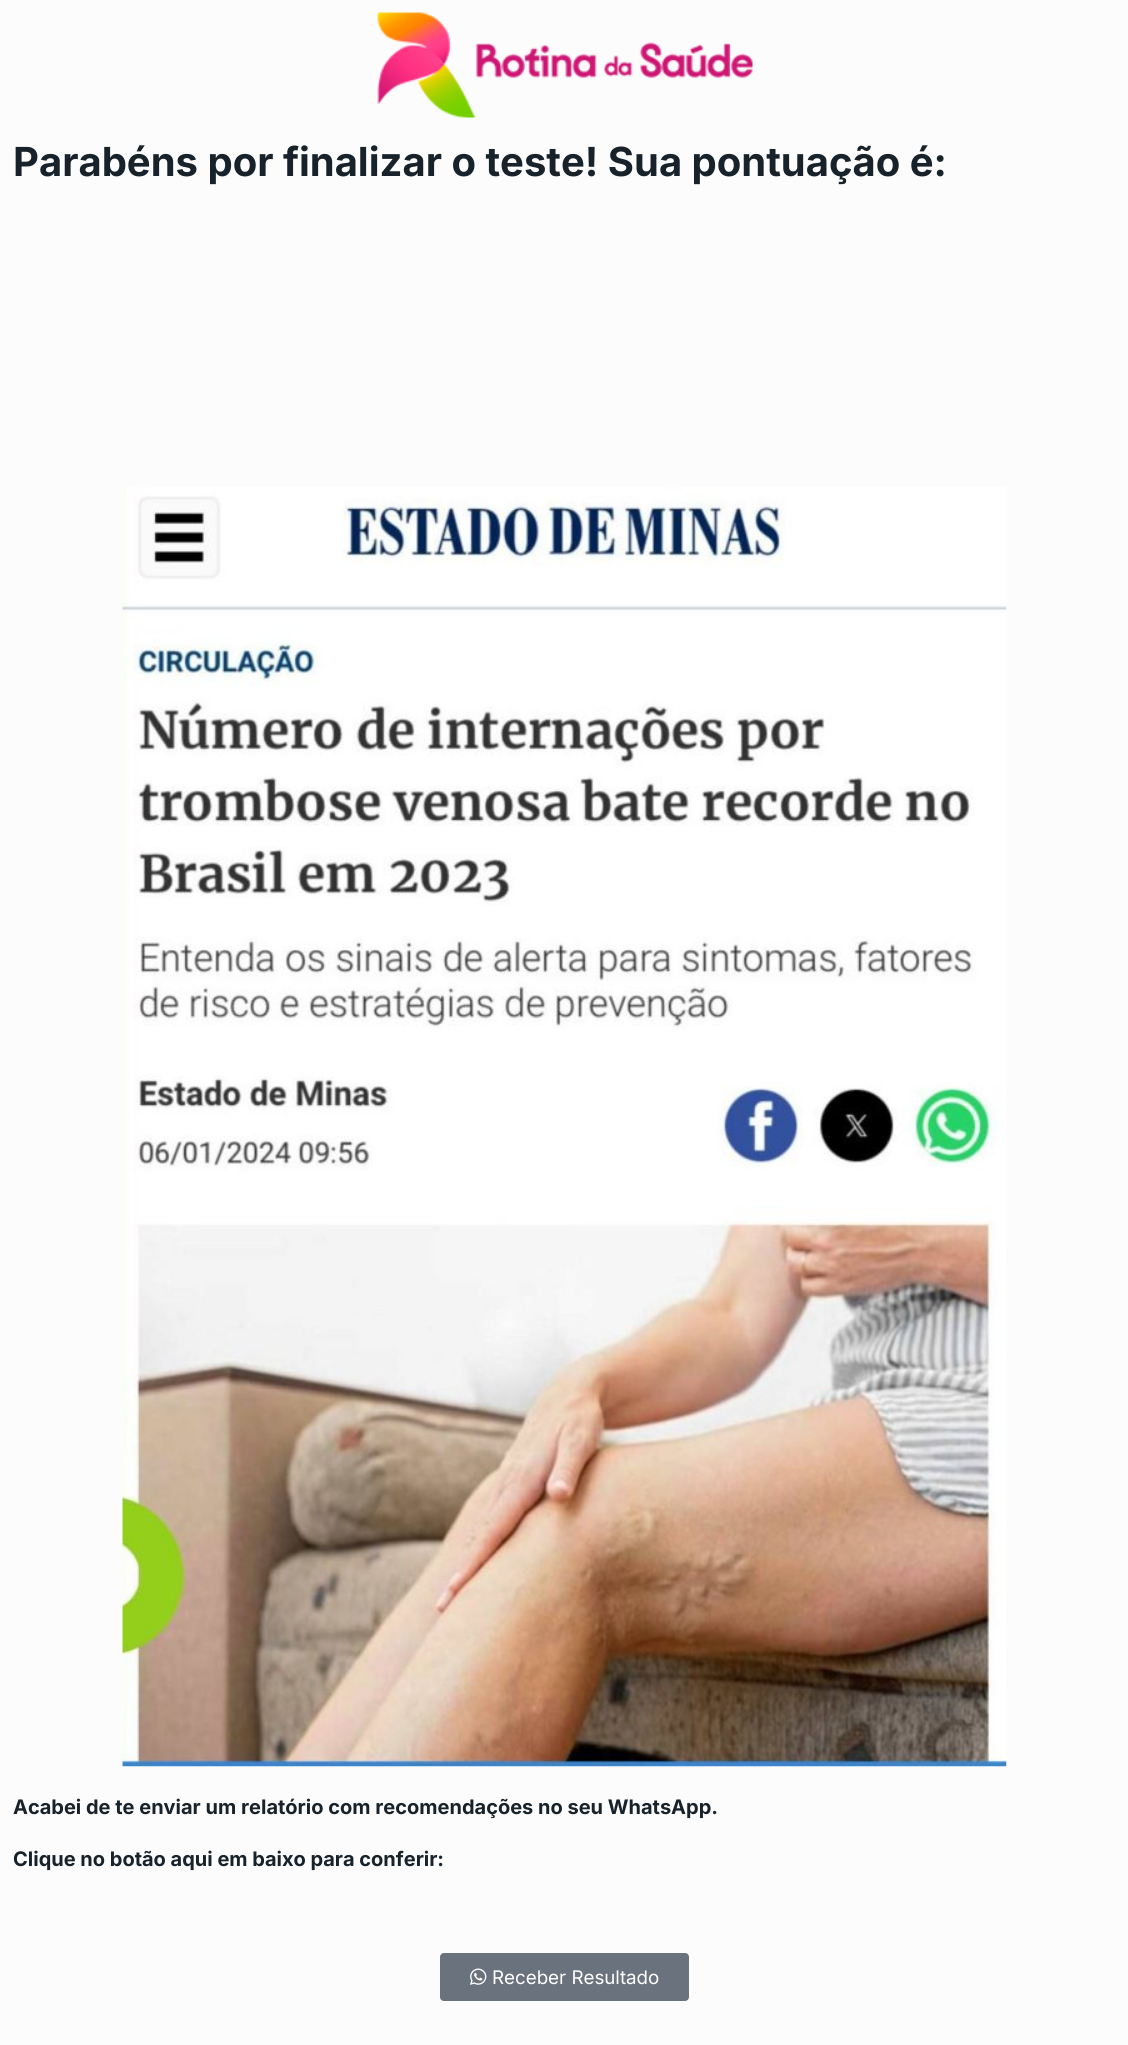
import math
import cairo

surface = cairo.ImageSurface(cairo.FORMAT_RGB24, 1128, 2045)
c = cairo.Context(surface)
options = cairo.FontOptions()
options.set_hint_metrics(cairo.HINT_METRICS_OFF)
options.set_hint_style(cairo.HINT_STYLE_NONE)
c.set_font_options(options)
c.set_miter_limit(4)
def C(code):
 c.set_source_rgb(*(v / 255 for v in bytes.fromhex(code[-6:])))
def F(family, size, italic, bold):
 c.select_font_face(family, cairo.FONT_SLANT_ITALIC if italic else cairo.FONT_SLANT_NORMAL, cairo.FONT_WEIGHT_BOLD if bold else cairo.FONT_WEIGHT_NORMAL)
 c.set_font_size(size)
def T(x, y, s):
 c.move_to(x, y)
 c.show_text(s)
def Q(x, y, w, h, r):
 c.new_sub_path()
 for i, (u, v) in enumerate([(x + w - r, y + h - r), (x + r, y + h - r), (x + r, y + r), (x + w - r, y + r)]):
  c.arc(u, v, r, i * math.pi / 2, (i + 1) * math.pi / 2)
 c.close_path()
def I(path, x, y, w, h):
 c.save()
 c.set_source_surface(cairo.ImageSurface.create_from_png(path), x, y)
 c.rectangle(x, y, w, h)
 c.fill()
 c.restore()
C('fcfcfc')
c.paint()
I('1.png',377,12,376,106)
F('Inter',40,0,1)
C('17222b')
T(13,176,'Parabéns por finalizar o teste! Sua pontuação é:')
I('2.png',122,487,885,1280)
F('Inter',20,0,1)
T(13,1814,'Acabei de te enviar um relatório com recomendações no seu WhatsApp.')
T(13,1866,'Clique no botão aqui em baixo para conferir:')
C('69727d')
Q(440,1953,249,48,4)
c.fill()
I('3.png',470,1968,17,17)
F('Inter',18.75,0,0)
C('ffffff')
T(492,1984,'Receber Resultado')
surface.write_to_png('o.png')
